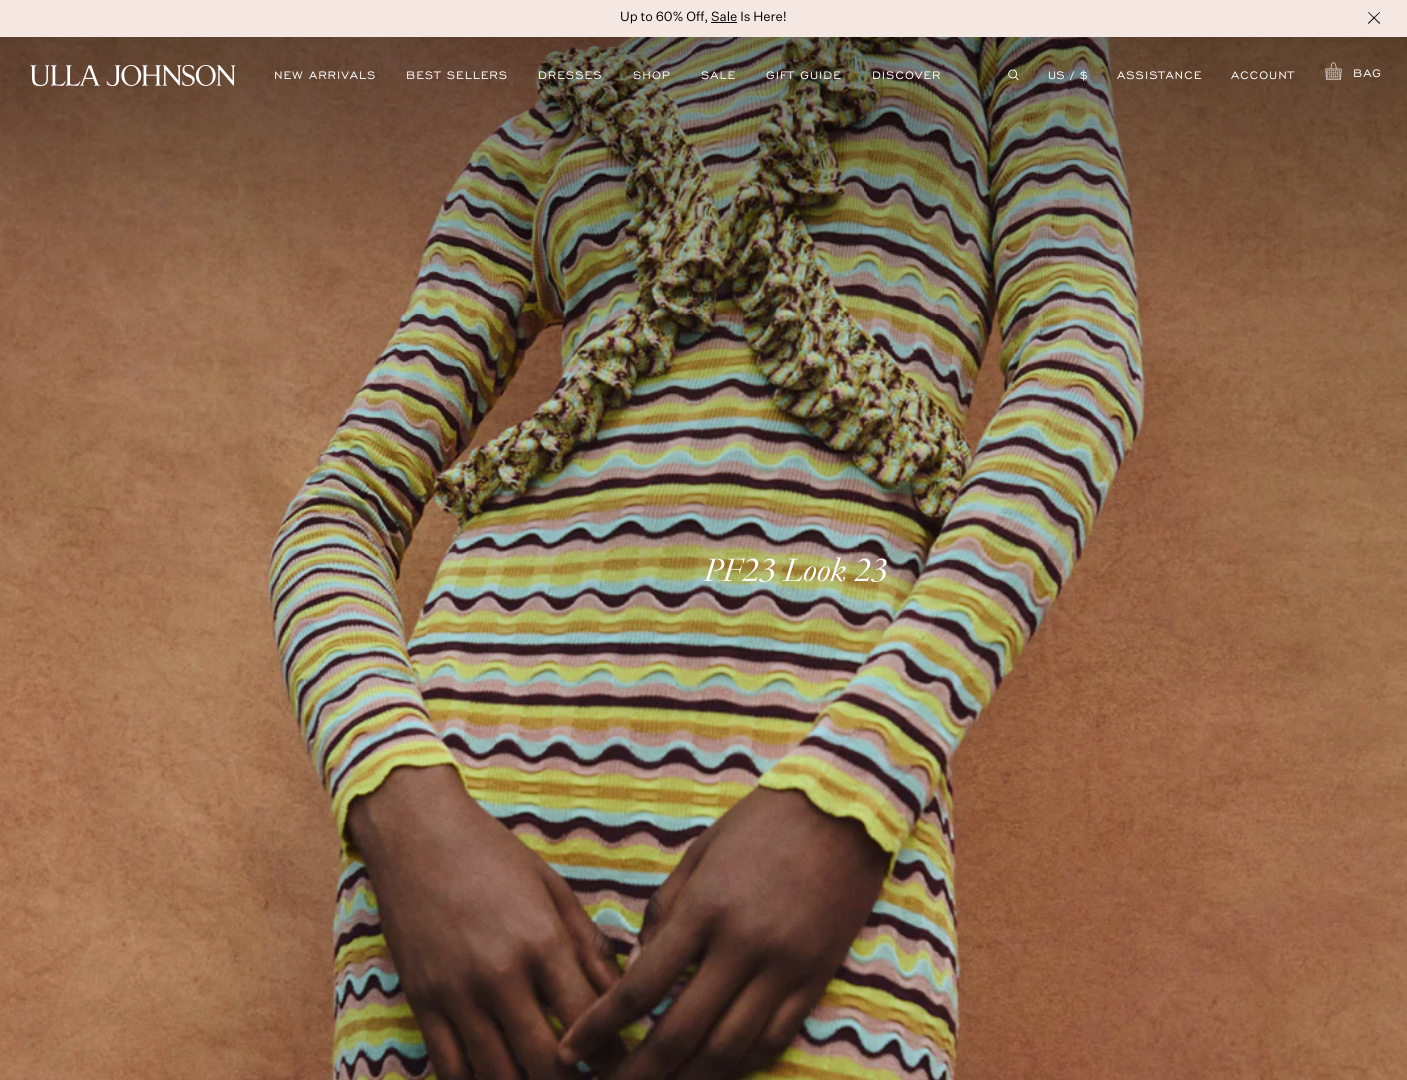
import math
import cairo

surface = cairo.ImageSurface(cairo.FORMAT_RGB24, 1407, 1080)
c = cairo.Context(surface)
options = cairo.FontOptions()
options.set_hint_metrics(cairo.HINT_METRICS_OFF)
options.set_hint_style(cairo.HINT_STYLE_NONE)
c.set_font_options(options)
c.set_miter_limit(4)
def C(code):
 c.set_source_rgb(*(v / 255 for v in bytes.fromhex(code[-6:])))
def F(family, size, italic, bold):
 c.select_font_face(family, cairo.FONT_SLANT_ITALIC if italic else cairo.FONT_SLANT_NORMAL, cairo.FONT_WEIGHT_BOLD if bold else cairo.FONT_WEIGHT_NORMAL)
 c.set_font_size(size)
def T(x, y, s):
 c.move_to(x, y)
 c.show_text(s)
def L(x, y, s, letter, word):
 c.move_to(x, y)
 for ch in s:
  c.show_text(ch)
  c.rel_move_to(letter + word * (ch == ' '), 0)
def R(x, y, w, h):
 c.rectangle(x, y, w, h)
 c.fill()
def I(path, x, y, w, h):
 c.save()
 c.set_source_surface(cairo.ImageSurface.create_from_png(path), x, y)
 c.rectangle(x, y, w, h)
 c.fill()
 c.restore()
C('ffffff')
c.paint()
C('f5e7e1')
R(0,0,1407,37)
F('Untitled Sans',13,0,0)
C('000000')
T(620,21,'Up to 60% Off, Sale Is Here!')
R(711,22,26,1)
c.new_path()
c.move_to(1368.5,12)
c.line_to(1380,23)
c.line_to(1379.5,24)
c.line_to(1368,12.5)
c.close_path()
c.fill()
c.new_path()
c.move_to(1368,23)
c.line_to(1379.5,12)
c.line_to(1380,12.5)
c.line_to(1368.5,24)
c.close_path()
c.fill()
I('4.png',0,37,1407,1043)
I('1.png',30,64,206,23)
F('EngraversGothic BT',14,0,0)
C('ffffff')
L(274,79,'NEW ARRIVALS',1,0)
L(406,79,'BEST SELLERS',1,0)
L(538,79,'DRESSES',1,0)
L(633,79,'SHOP',1,0)
L(701,79,'SALE',1,0)
L(766,79,'GIFT GUIDE',1,0)
L(872,79,'DISCOVER',1,0)
I('2.png',1008,69,11,12)
L(1048,79,'US / $',.25,0)
L(1117,79,'ASSISTANCE',1,0)
L(1231,79,'ACCOUNT',1,0)
I('3.png',1325,62,17,18)
L(1353,77,'BAG',1,0)
F('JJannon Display',33,1,0)
T(704,581,'PF23 Look 23')
surface.write_to_png('o.png')
